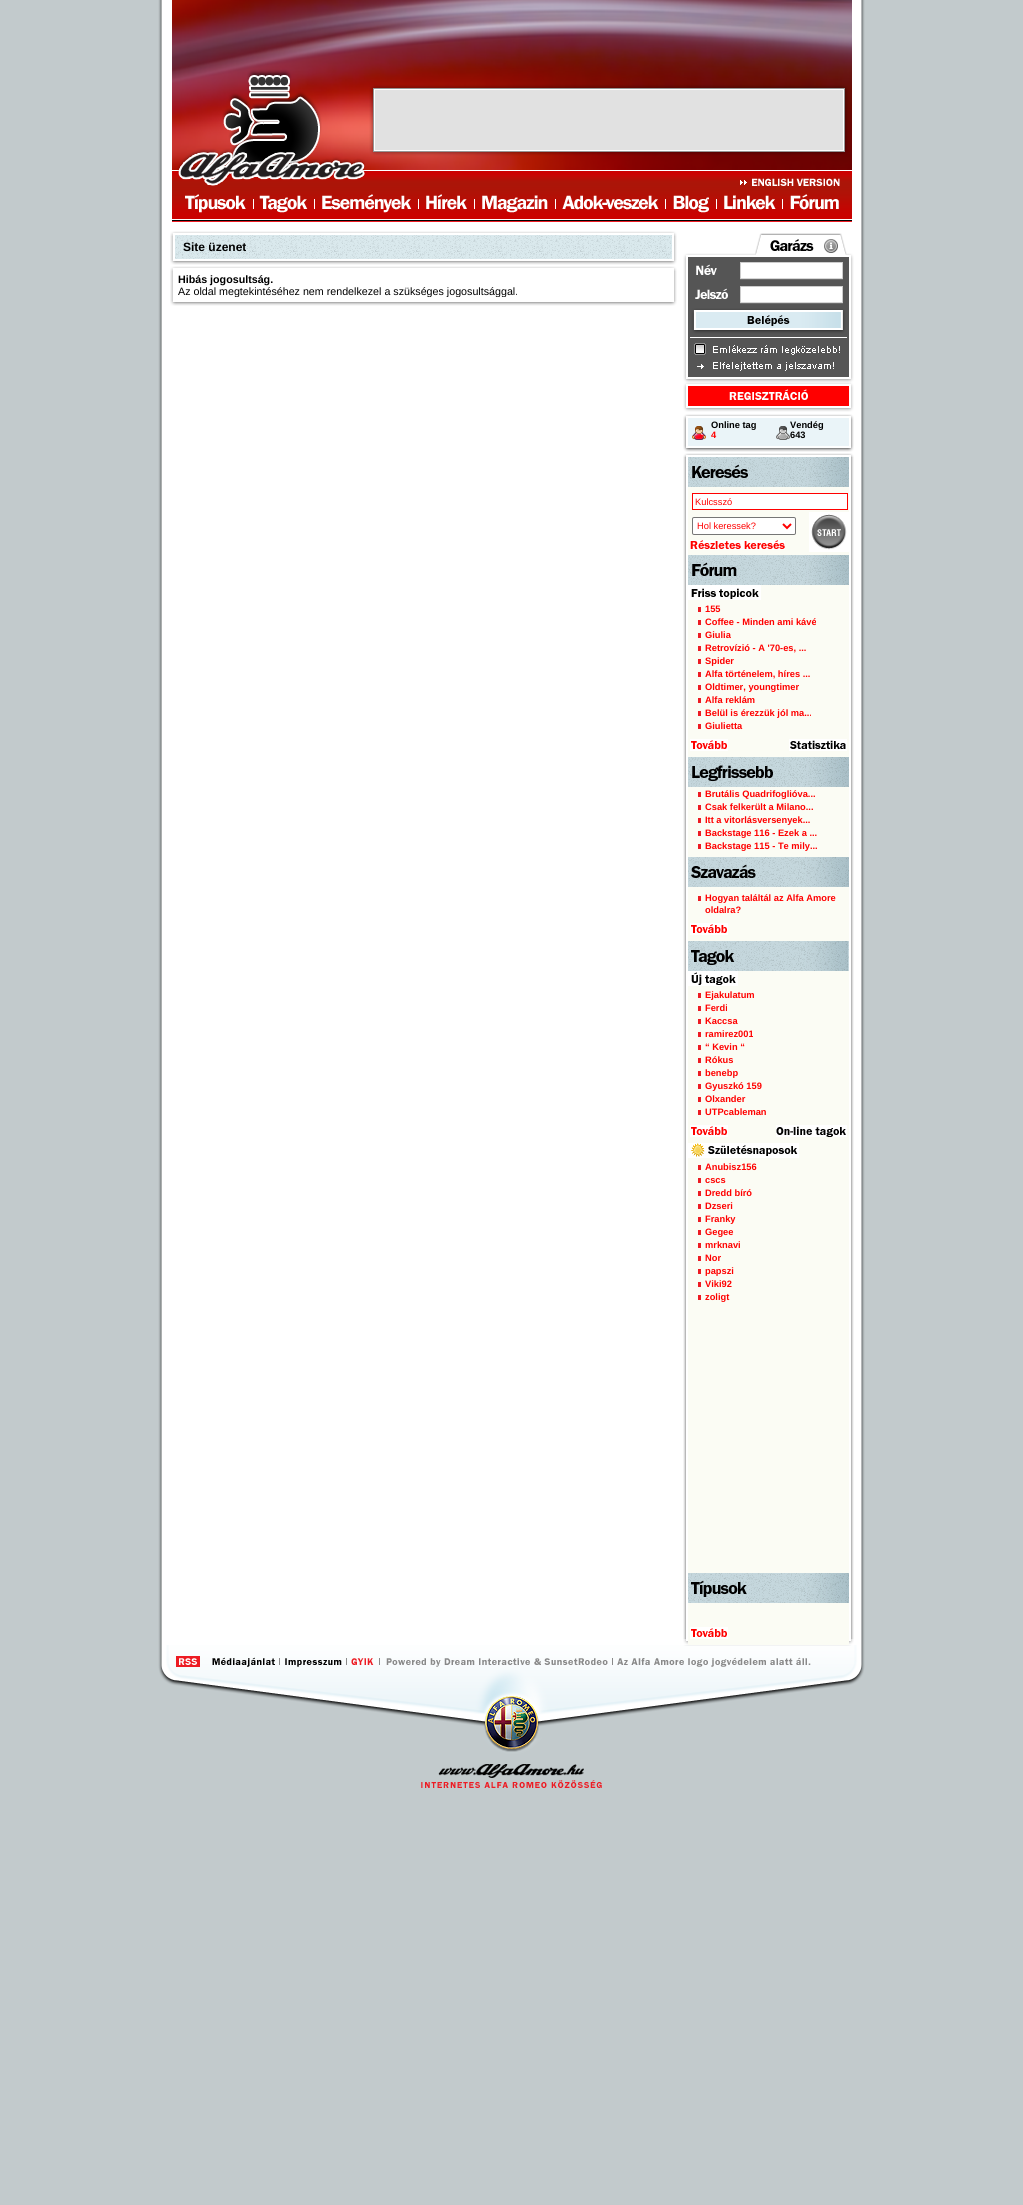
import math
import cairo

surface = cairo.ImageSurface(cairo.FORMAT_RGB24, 1023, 2205)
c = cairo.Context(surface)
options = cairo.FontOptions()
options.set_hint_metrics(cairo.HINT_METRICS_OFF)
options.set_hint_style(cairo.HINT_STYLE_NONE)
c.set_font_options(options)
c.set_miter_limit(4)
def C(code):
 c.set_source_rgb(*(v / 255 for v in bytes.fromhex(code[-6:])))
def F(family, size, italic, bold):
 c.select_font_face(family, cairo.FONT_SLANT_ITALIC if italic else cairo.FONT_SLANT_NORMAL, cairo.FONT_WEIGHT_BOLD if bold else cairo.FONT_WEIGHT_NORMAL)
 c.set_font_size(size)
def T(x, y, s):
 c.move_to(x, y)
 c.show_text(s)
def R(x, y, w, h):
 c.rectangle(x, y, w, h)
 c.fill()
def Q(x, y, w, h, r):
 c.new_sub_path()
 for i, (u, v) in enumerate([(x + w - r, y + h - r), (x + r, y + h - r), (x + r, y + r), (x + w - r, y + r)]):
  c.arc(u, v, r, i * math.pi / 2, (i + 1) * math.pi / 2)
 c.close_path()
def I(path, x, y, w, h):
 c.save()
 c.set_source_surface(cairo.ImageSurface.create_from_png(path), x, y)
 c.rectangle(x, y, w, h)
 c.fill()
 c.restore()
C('c2cacc')
c.paint()
I('1.png',158,0,707,1645)
I('2.png',172,0,680,222)
I('3.png',683,457,171,1182)
I('4.png',683,1639,171,6)
I('5.png',170,236,507,24)
I('6.png',170,231,507,5)
I('7.png',170,260,507,5)
I('8.png',175,235,497,24)
F('Liberation Sans',12,0,1)
C('000000')
T(183,251,'Site üzenet')
I('9.png',170,271,507,30)
I('6.png',170,266,507,5)
I('7.png',170,301,507,5)
F('Liberation Sans',10.7,0,1)
T(178,283,'Hibás jogosultság.')
c.save()
c.rectangle(178,273,491,24)
c.clip()
F('Liberation Sans',10.7,0,0)
T(178,295,'Az oldal megtekintéséhez nem rendelkezel a szükséges jogosultsággal.')
c.restore()
I('10.png',683,233,171,185)
I('11.png',694,343,12,12)
I('12.png',683,418,171,39)
F('Liberation Sans',9.3,0,1)
T(711,428,'Online tag')
C('ff0000')
T(711,438,'4')
C('000000')
T(790,428,'Vendég')
T(790,438,'643')
C('fbfcf4')
R(688,487,161,68)
I('13.png',688,457,161,30)
C('ffffff')
c.rectangle(692.5,493.5,155,16)
c.fill_preserve()
C('ff0000')
c.set_line_width(1)
c.stroke()
F('Liberation Sans',9.3,0,0)
T(695,505,'Kulcsszó')
C('ffffff')
Q(692.5,517.5,103,17,1.5)
c.fill_preserve()
C('767676')
c.stroke()
c.new_path()
c.move_to(783,524)
c.line_to(787,528)
c.line_to(791,524)
C('ff0000')
c.set_line_width(2)
c.stroke()
T(697,529,'Hol keressek?')
I('14.png',809,512,40,40)
I('15.png',690,540,95,10)
C('fbfcf4')
R(688,585,161,172)
I('16.png',688,555,161,30)
I('17.png',688,585,73,15)
C('ed1b23')
R(698,607,3,5)
F('Liberation Sans',9.3,0,1)
C('ff0000')
T(705,612,'155')
C('ed1b23')
R(698,620,3,5)
C('ff0000')
T(705,625,'Coffee - Minden ami kávé')
C('ed1b23')
R(698,633,3,5)
C('ff0000')
T(705,638,'Giulia')
C('ed1b23')
R(698,646,3,5)
C('ff0000')
T(705,651,'Retrovízió - A \'70-es, ...')
C('ed1b23')
R(698,659,3,5)
C('ff0000')
T(705,664,'Spider')
C('ed1b23')
R(698,672,3,5)
C('ff0000')
T(705,677,'Alfa történelem, híres ...')
C('ed1b23')
R(698,685,3,5)
C('ff0000')
T(705,690,'Oldtimer, youngtimer')
C('ed1b23')
R(698,698,3,5)
C('ff0000')
T(705,703,'Alfa reklám')
C('ed1b23')
R(698,711,3,5)
C('ff0000')
T(705,716,'Belül is érezzük jól ma...')
C('ed1b23')
R(698,724,3,5)
C('ff0000')
T(705,729,'Giulietta')
I('18.png',690,739,38,12)
I('19.png',789,739,58,12)
C('fbfcf4')
R(688,787,161,70)
I('20.png',688,757,161,30)
C('ed1b23')
R(698,792,3,5)
C('ff0000')
T(705,797,'Brutális Quadrifoglióva...')
C('ed1b23')
R(698,805,3,5)
C('ff0000')
T(705,810,'Csak felkerült a Milano...')
C('ed1b23')
R(698,818,3,5)
C('ff0000')
T(705,823,'Itt a vitorlásversenyek...')
C('ed1b23')
R(698,831,3,5)
C('ff0000')
T(705,836,'Backstage 116 - Ezek a ...')
C('ed1b23')
R(698,844,3,5)
C('ff0000')
T(705,849,'Backstage 115 - Te mily...')
C('fbfcf4')
R(688,887,161,54)
I('21.png',688,857,161,30)
C('ed1b23')
R(698,896,3,5)
C('ff0000')
T(705,901,'Hogyan találtál az Alfa Amore')
T(705,913,'oldalra?')
I('18.png',690,923,38,12)
C('fbfcf4')
R(688,971,161,602)
I('22.png',688,941,161,30)
I('23.png',688,971,50,15)
C('ed1b23')
R(698,993,3,5)
C('ff0000')
T(705,998,'Ejakulatum')
C('ed1b23')
R(698,1006,3,5)
C('ff0000')
T(705,1011,'Ferdi')
C('ed1b23')
R(698,1019,3,5)
C('ff0000')
T(705,1024,'Kaccsa')
C('ed1b23')
R(698,1032,3,5)
C('ff0000')
T(705,1037,'ramirez001')
C('ed1b23')
R(698,1045,3,5)
C('ff0000')
T(705,1050,'“ Kevin “')
C('ed1b23')
R(698,1058,3,5)
C('ff0000')
T(705,1063,'Rókus')
C('ed1b23')
R(698,1071,3,5)
C('ff0000')
T(705,1076,'benebp')
C('ed1b23')
R(698,1084,3,5)
C('ff0000')
T(705,1089,'Gyuszkó 159')
C('ed1b23')
R(698,1097,3,5)
C('ff0000')
T(705,1102,'Olxander')
C('ed1b23')
R(698,1110,3,5)
C('ff0000')
T(705,1115,'UTPcableman')
I('18.png',690,1125,38,12)
I('24.png',776,1125,71,12)
I('25.png',688,1143,111,15)
C('ed1b23')
R(698,1165,3,5)
C('ff0000')
T(705,1170,'Anubisz156')
C('ed1b23')
R(698,1178,3,5)
C('ff0000')
T(705,1183,'cscs')
C('ed1b23')
R(698,1191,3,5)
C('ff0000')
T(705,1196,'Dredd bíró')
C('ed1b23')
R(698,1204,3,5)
C('ff0000')
T(705,1209,'Dzseri')
C('ed1b23')
R(698,1217,3,5)
C('ff0000')
T(705,1222,'Franky')
C('ed1b23')
R(698,1230,3,5)
C('ff0000')
T(705,1235,'Gegee')
C('ed1b23')
R(698,1243,3,5)
C('ff0000')
T(705,1248,'mrknavi')
C('ed1b23')
R(698,1256,3,5)
C('ff0000')
T(705,1261,'Nor')
C('ed1b23')
R(698,1269,3,5)
C('ff0000')
T(705,1274,'papszi')
C('ed1b23')
R(698,1282,3,5)
C('ff0000')
T(705,1287,'Viki92')
C('ed1b23')
R(698,1295,3,5)
C('ff0000')
T(705,1300,'zoligt')
C('fbfcf4')
R(688,1603,161,42)
I('26.png',688,1573,161,30)
I('18.png',690,1627,38,12)
I('27.png',158,1645,707,143)
surface.write_to_png('o.png')
